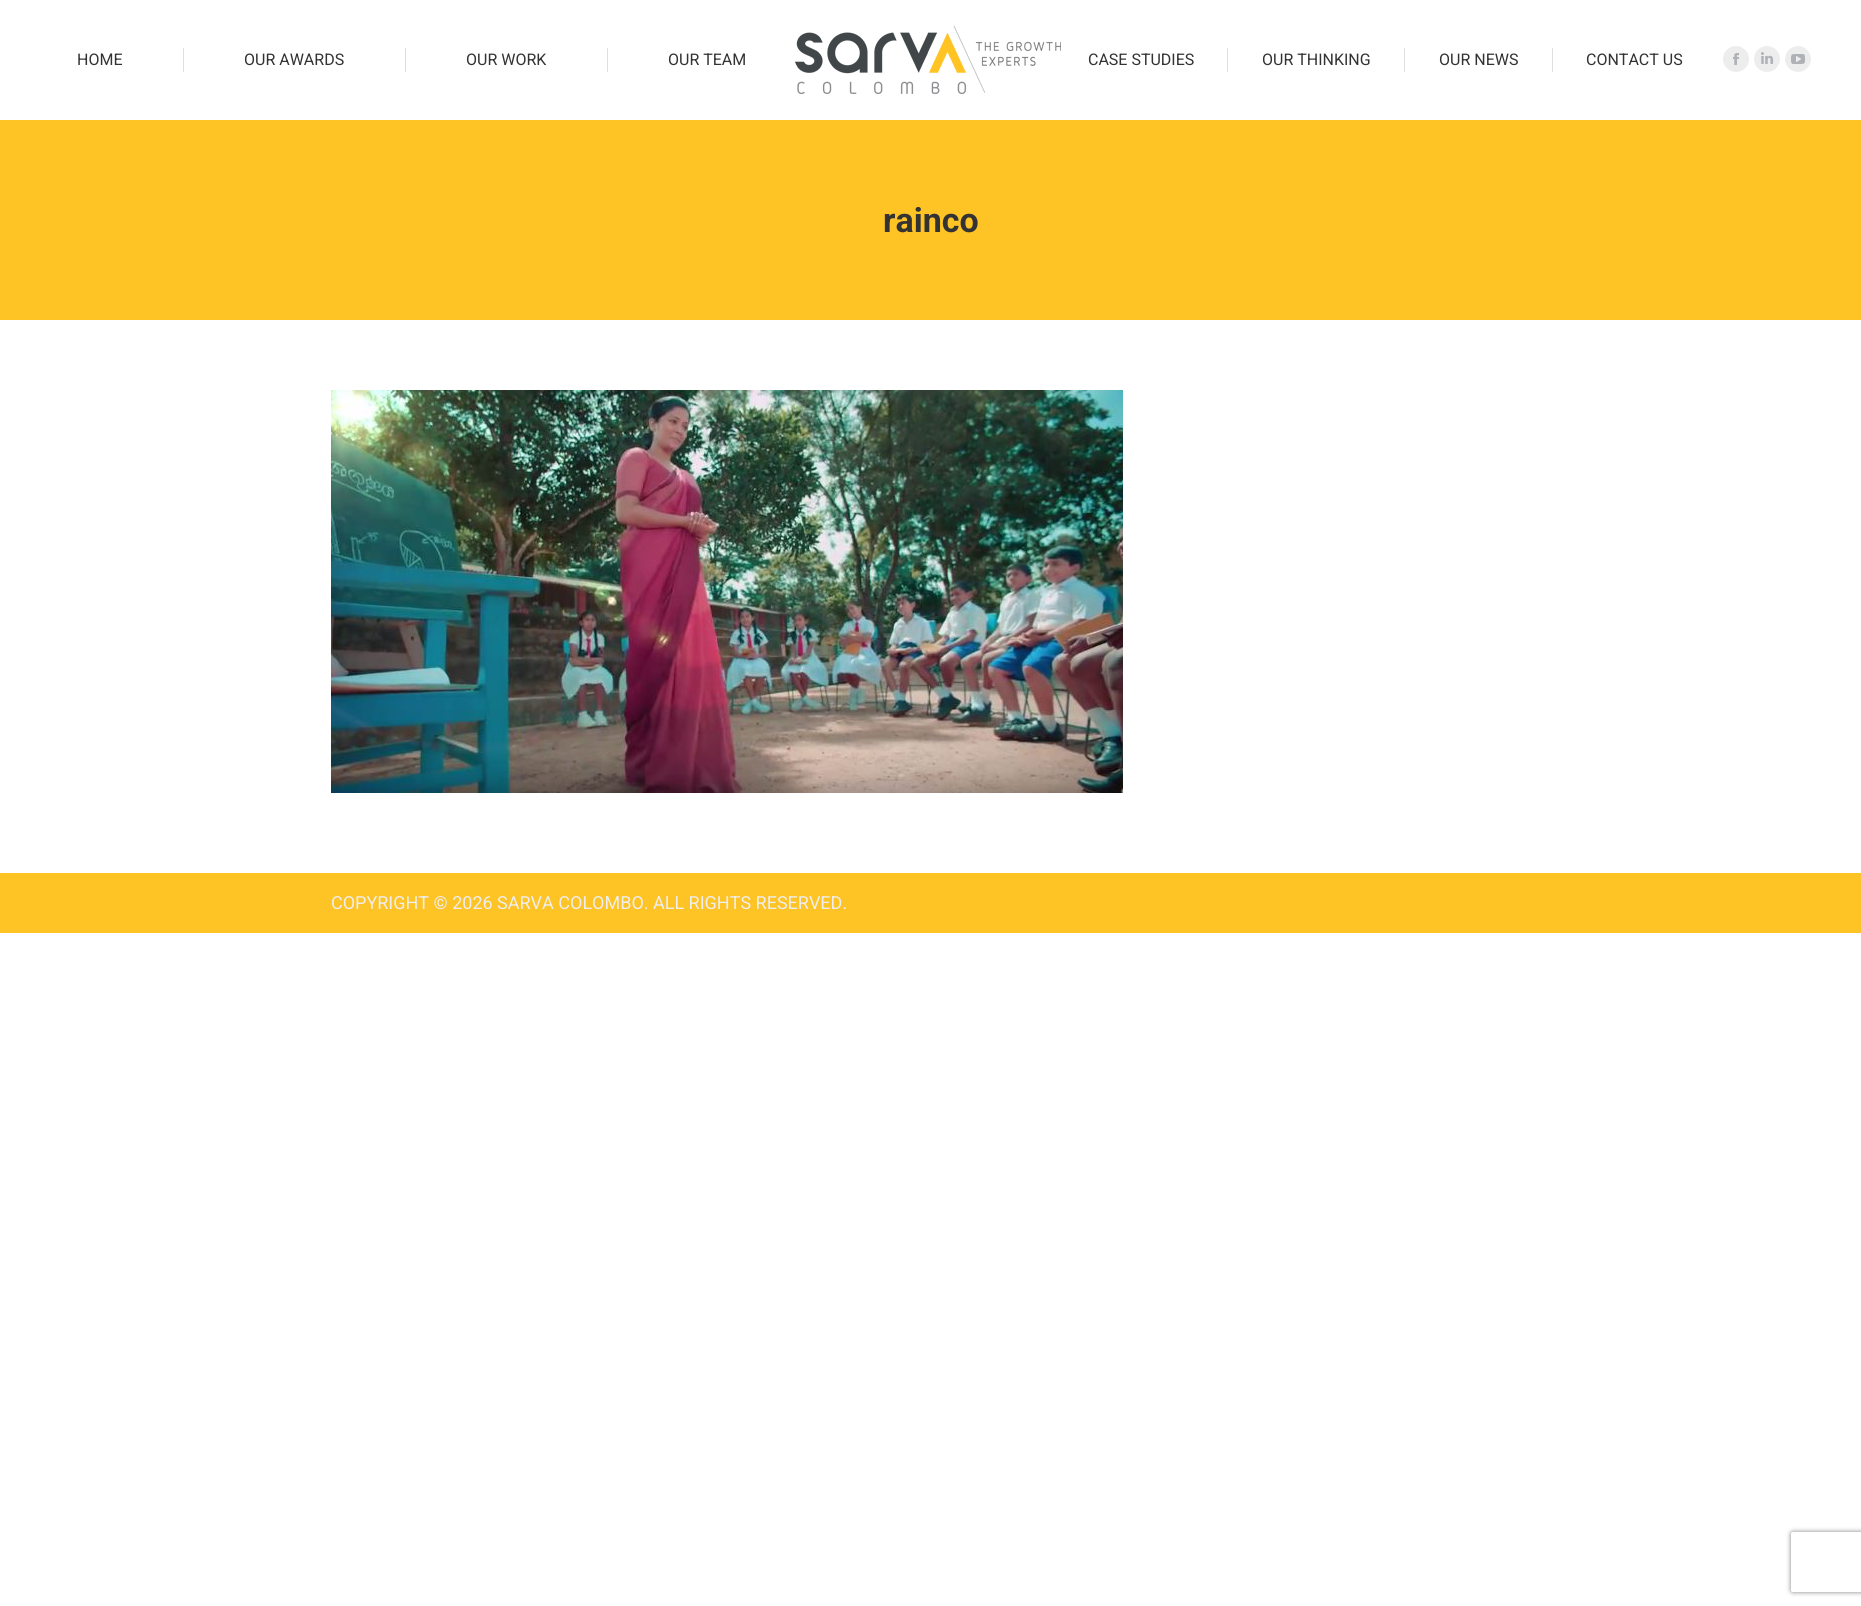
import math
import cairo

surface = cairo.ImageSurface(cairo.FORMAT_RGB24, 1861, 1606)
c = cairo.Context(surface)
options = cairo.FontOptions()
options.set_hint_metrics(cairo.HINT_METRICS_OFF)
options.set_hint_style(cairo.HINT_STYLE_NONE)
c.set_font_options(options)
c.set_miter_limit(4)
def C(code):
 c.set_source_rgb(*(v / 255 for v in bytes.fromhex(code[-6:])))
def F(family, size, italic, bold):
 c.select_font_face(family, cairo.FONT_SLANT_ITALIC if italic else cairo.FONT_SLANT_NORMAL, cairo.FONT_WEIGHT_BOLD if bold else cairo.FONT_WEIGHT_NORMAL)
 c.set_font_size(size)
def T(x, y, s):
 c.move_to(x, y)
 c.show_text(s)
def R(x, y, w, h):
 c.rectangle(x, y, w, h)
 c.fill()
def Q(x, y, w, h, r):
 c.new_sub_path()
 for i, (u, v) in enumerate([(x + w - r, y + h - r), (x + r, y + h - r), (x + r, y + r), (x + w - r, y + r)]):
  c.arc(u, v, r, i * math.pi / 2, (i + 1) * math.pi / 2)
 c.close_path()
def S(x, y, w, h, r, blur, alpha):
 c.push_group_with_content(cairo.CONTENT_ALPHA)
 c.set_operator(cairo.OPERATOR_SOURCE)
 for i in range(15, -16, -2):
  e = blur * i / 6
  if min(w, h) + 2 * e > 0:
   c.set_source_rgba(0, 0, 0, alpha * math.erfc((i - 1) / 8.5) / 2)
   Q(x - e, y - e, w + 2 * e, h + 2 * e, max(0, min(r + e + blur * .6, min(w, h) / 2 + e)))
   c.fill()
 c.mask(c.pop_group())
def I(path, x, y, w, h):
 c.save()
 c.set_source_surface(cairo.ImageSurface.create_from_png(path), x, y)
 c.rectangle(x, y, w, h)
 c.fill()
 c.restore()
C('ffffff')
c.paint()
F('Roboto',16,0,0)
C('333333')
T(77,65,'HOME')
C('dedede')
R(183,48,1,24)
C('333333')
T(244,65,'OUR AWARDS')
C('dedede')
R(405,48,1,24)
C('333333')
T(466,65,'OUR WORK')
C('dedede')
R(607,48,1,24)
C('333333')
T(668,65,'OUR TEAM')
I('1.png',795,26,266,68)
T(1088,65,'CASE STUDIES')
C('dedede')
R(1227,48,1,24)
C('333333')
T(1262,65,'OUR THINKING')
C('dedede')
R(1404,48,1,24)
C('333333')
T(1439,65,'OUR NEWS')
C('dedede')
R(1552,48,1,24)
C('333333')
T(1586,65,'CONTACT US')
C('ededed')
c.new_path()
c.arc(1736,59,13,0,2 * math.pi)
c.fill()
I('2.png',1733,53,6,12)
c.arc(1767,59,13,0,2 * math.pi)
c.fill()
I('3.png',1761,52,12,12)
c.arc(1798,59,13,0,2 * math.pi)
c.fill()
I('4.png',1791,54,14,10)
C('fec325')
R(0,120,1861,200)
F('Roboto',34,0,1)
C('333333')
T(883,232,'rainco')
I('5.png',331,390,792,403)
C('fec325')
R(0,873,1861,60)
F('Roboto',18,0,0)
C('eeeeee')
T(331,909,'COPYRIGHT © 2026 SARVA COLOMBO. ALL RIGHTS RESERVED.')
c.save()
c.set_fill_rule(cairo.FILL_RULE_EVEN_ODD)
c.new_path()
c.move_to(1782,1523)
c.line_to(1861,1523)
c.line_to(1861,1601)
c.line_to(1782,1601)
c.close_path()
c.move_to(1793,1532)
c.line_to(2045,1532)
c.curve_to(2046,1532,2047,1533,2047,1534)
c.line_to(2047,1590)
c.curve_to(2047,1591,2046,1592,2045,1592)
c.line_to(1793,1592)
c.curve_to(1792,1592,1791,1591,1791,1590)
c.line_to(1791,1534)
c.curve_to(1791,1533,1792,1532,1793,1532)
c.close_path()
c.clip()
C('808080')
S(1791,1532,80,60,2,2.5,1)
c.restore()
surface.write_to_png('o.png')
